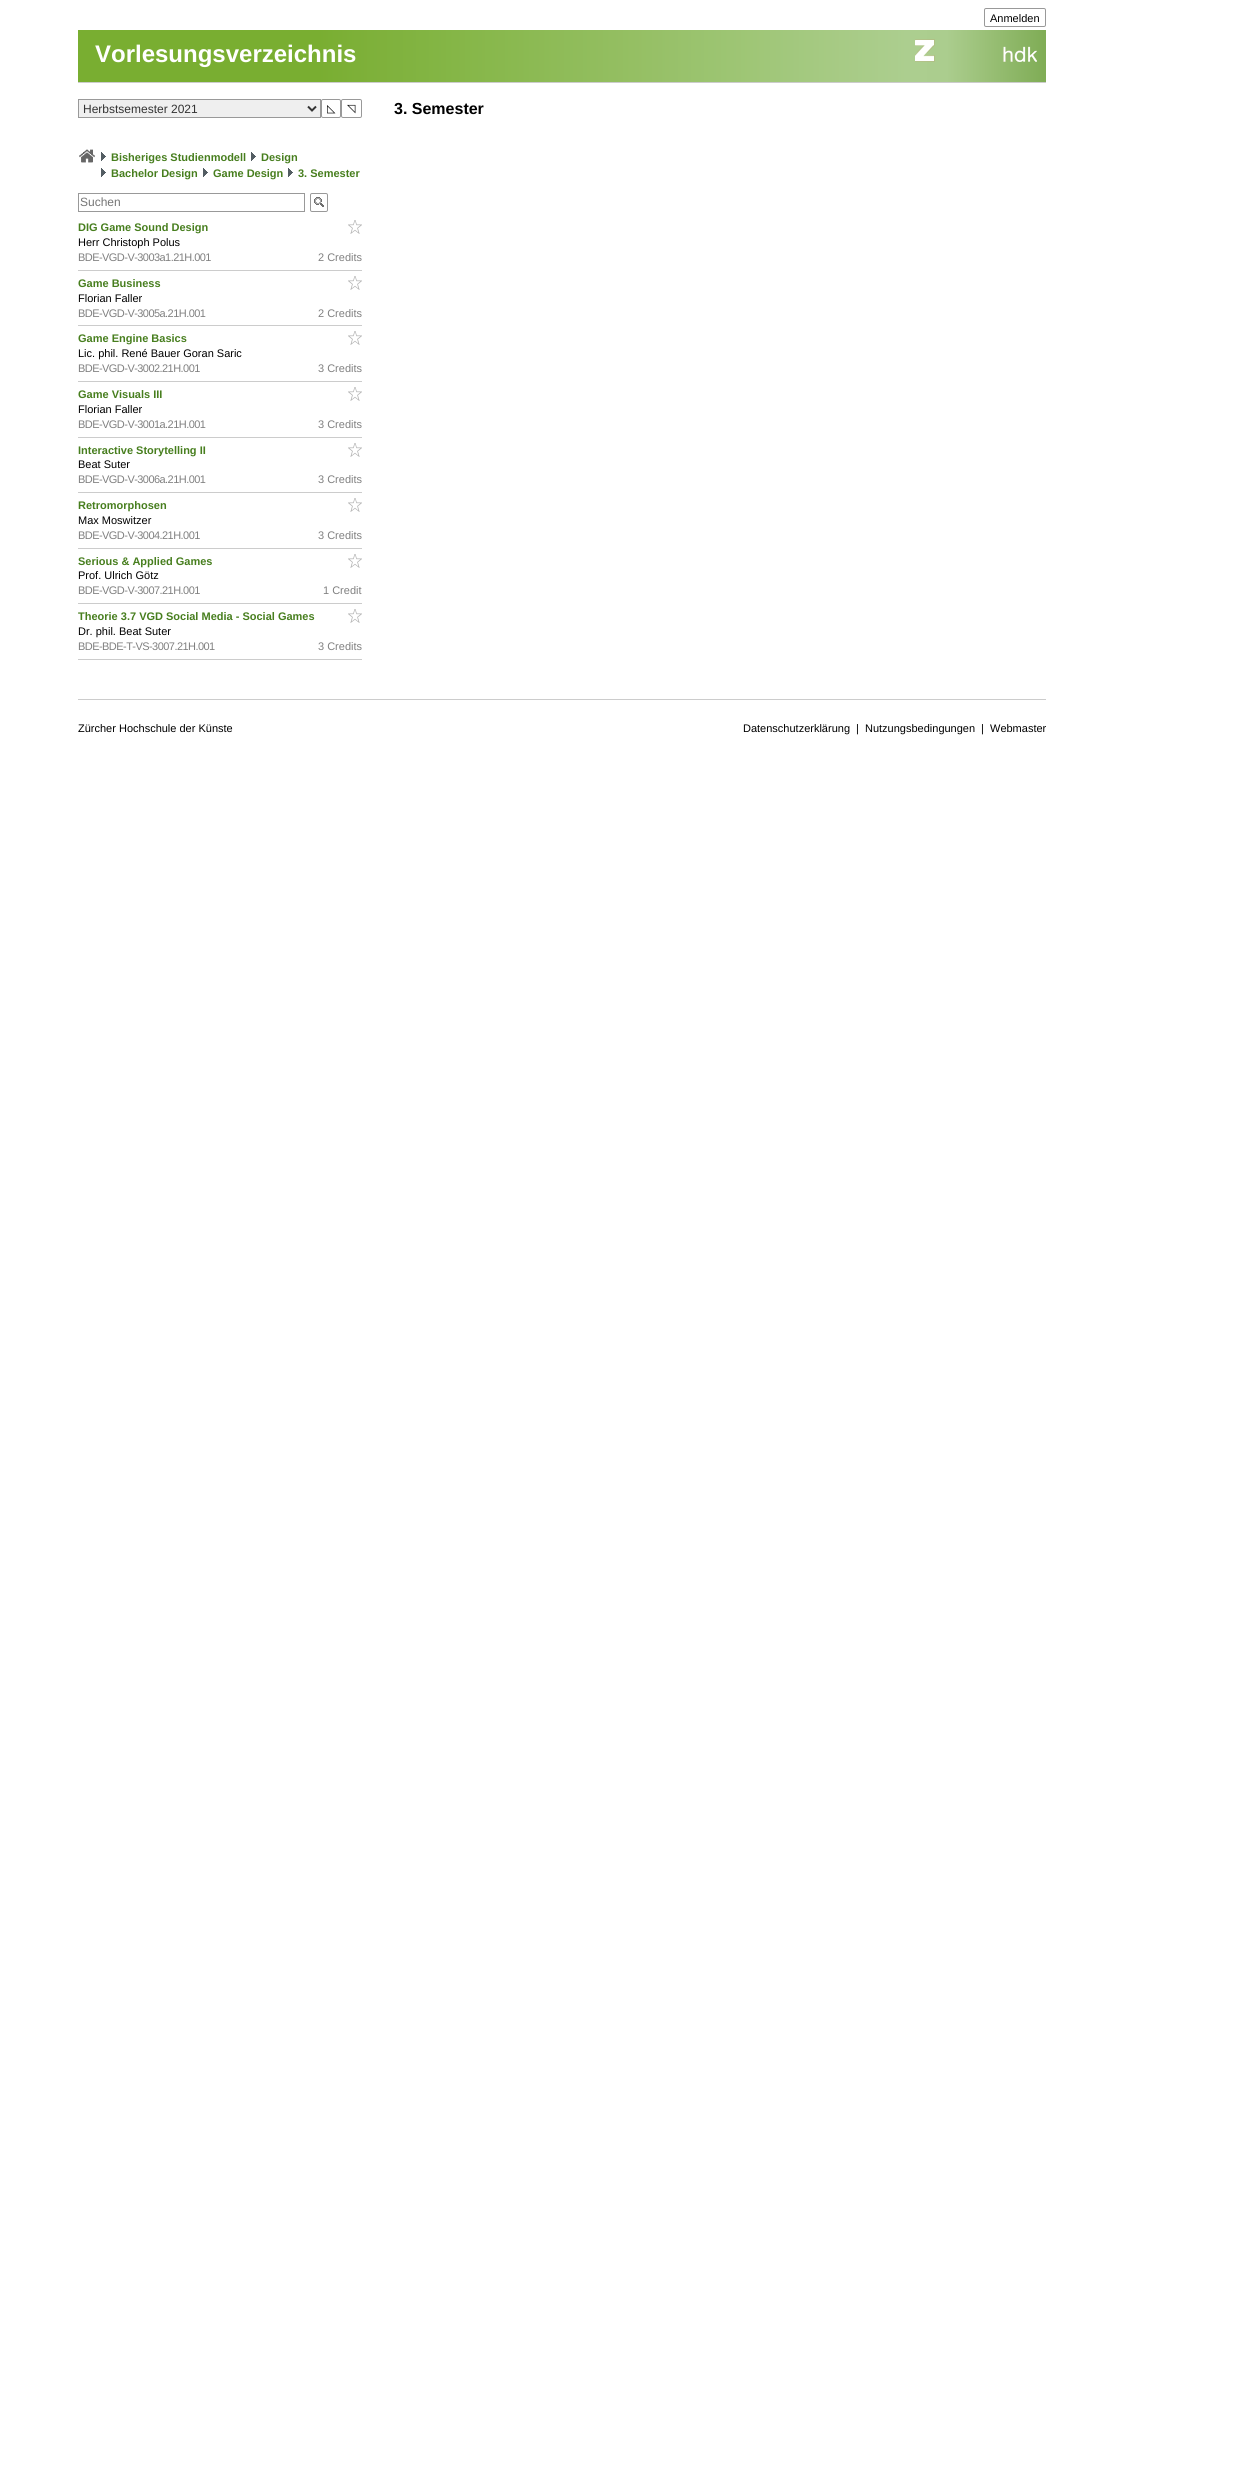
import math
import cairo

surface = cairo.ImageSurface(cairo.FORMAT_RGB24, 1259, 2475)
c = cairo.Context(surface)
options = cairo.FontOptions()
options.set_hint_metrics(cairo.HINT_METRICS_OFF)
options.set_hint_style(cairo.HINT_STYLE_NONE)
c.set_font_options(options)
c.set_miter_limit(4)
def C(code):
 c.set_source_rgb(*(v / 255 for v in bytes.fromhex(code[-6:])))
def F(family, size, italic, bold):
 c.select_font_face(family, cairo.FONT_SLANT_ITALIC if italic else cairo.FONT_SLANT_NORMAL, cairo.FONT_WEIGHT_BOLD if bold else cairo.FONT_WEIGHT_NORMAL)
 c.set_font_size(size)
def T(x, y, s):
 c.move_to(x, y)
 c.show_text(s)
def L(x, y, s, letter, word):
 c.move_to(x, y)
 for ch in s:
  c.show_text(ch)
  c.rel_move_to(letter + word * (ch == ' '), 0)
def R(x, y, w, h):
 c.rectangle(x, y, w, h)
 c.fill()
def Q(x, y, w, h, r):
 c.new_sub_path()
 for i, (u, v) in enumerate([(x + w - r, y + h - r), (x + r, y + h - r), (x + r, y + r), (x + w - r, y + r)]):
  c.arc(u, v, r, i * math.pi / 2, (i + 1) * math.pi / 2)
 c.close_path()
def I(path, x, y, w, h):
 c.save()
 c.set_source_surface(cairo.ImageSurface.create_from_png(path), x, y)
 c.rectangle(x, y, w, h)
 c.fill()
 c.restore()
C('ffffff')
c.paint()
Q(984.5,8.5,61,18,1.5)
C('999999')
c.set_line_width(1)
c.stroke()
F('Liberation Sans',11,0,0)
C('000000')
T(990,22,'Anmelden')
I('1.png',78,30,968,52)
I('2.png',915,39,122,23)
F('Liberation Sans',24,0,1)
C('ffffff')
T(95,62,'Vorlesungsverzeichnis')
C('cccccc')
R(78,82,968,1)
C('efefef')
c.rectangle(78.5,99.5,242,18)
c.fill_preserve()
C('999999')
c.stroke()
c.new_path()
c.move_to(308,106.5)
c.line_to(312,110.5)
c.line_to(316,106.5)
C('333333')
c.set_line_width(2)
c.stroke()
F('Liberation Sans',12,0,0)
T(83,113,'Herbstsemester 2021')
Q(321.5,99.5,19,18,1.5)
C('999999')
c.set_line_width(1)
c.stroke()
F('DejaVu Sans',11,0,0)
C('000000')
T(327,112,'◺')
Q(341.5,99.5,20,18,1.5)
C('999999')
c.stroke()
C('000000')
T(347,112,'◹')
I('3.png',79,149,16,14)
I('4.png',101,152,5,9)
F('Liberation Sans',11,0,1)
C('477e1e')
T(111,161,'Bisheriges Studienmodell')
I('4.png',251,152,5,9)
T(261,161,'Design')
I('4.png',101,168,5,9)
T(111,177,'Bachelor Design')
I('4.png',203,168,5,9)
T(213,177,'Game Design')
I('4.png',288,168,5,9)
T(298,177,'3. Semester')
c.rectangle(78.5,193.5,226,18)
C('999999')
c.stroke()
F('Liberation Sans',12,0,0)
C('757575')
T(80,206,'Suchen')
I('5.png',314,197,10,10)
Q(310.5,193.5,17,18,1.5)
C('999999')
c.stroke()
C('cccccc')
R(78,270,284,1)
F('Liberation Sans',11,0,1)
C('477e1e')
T(78,231,'DIG Game Sound Design')
I('6.png',348,220,14,14)
F('Liberation Sans',11,0,0)
C('000000')
T(78,246,'Herr Christoph Polus')
C('808080')
L(78,261,'BDE-VGD-V-3003a1.21H.001',-.55,0)
T(318,261,'2 Credits')
C('cccccc')
R(78,325,284,1)
F('Liberation Sans',11,0,1)
C('477e1e')
T(78,287,'Game Business')
I('6.png',348,276,14,14)
F('Liberation Sans',11,0,0)
C('000000')
T(78,302,'Florian Faller')
C('808080')
L(78,317,'BDE-VGD-V-3005a.21H.001',-.55,0)
T(318,317,'2 Credits')
C('cccccc')
R(78,381,284,1)
F('Liberation Sans',11,0,1)
C('477e1e')
T(78,342,'Game Engine Basics')
I('6.png',348,331,14,14)
F('Liberation Sans',11,0,0)
C('000000')
T(78,357,'Lic. phil. René Bauer Goran Saric')
C('808080')
L(78,372,'BDE-VGD-V-3002.21H.001',-.55,0)
T(318,372,'3 Credits')
C('cccccc')
R(78,437,284,1)
F('Liberation Sans',11,0,1)
C('477e1e')
T(78,398,'Game Visuals III')
I('6.png',348,387,14,14)
F('Liberation Sans',11,0,0)
C('000000')
T(78,413,'Florian Faller')
C('808080')
L(78,428,'BDE-VGD-V-3001a.21H.001',-.55,0)
T(318,428,'3 Credits')
C('cccccc')
R(78,492,284,1)
F('Liberation Sans',11,0,1)
C('477e1e')
T(78,454,'Interactive Storytelling II')
I('6.png',348,443,14,14)
F('Liberation Sans',11,0,0)
C('000000')
T(78,468,'Beat Suter')
C('808080')
L(78,483,'BDE-VGD-V-3006a.21H.001',-.55,0)
T(318,483,'3 Credits')
C('cccccc')
R(78,548,284,1)
F('Liberation Sans',11,0,1)
C('477e1e')
T(78,509,'Retromorphosen')
I('6.png',348,498,14,14)
F('Liberation Sans',11,0,0)
C('000000')
T(78,524,'Max Moswitzer')
C('808080')
L(78,539,'BDE-VGD-V-3004.21H.001',-.55,0)
T(318,539,'3 Credits')
C('cccccc')
R(78,603,284,1)
F('Liberation Sans',11,0,1)
C('477e1e')
T(78,565,'Serious & Applied Games')
I('6.png',348,554,14,14)
F('Liberation Sans',11,0,0)
C('000000')
T(78,579,'Prof. Ulrich Götz')
C('808080')
L(78,594,'BDE-VGD-V-3007.21H.001',-.55,0)
T(323,594,'1 Credit')
C('cccccc')
R(78,659,284,1)
F('Liberation Sans',11,0,1)
C('477e1e')
T(78,620,'Theorie 3.7 VGD Social Media - Social Games')
I('6.png',348,609,14,14)
F('Liberation Sans',11,0,0)
C('000000')
T(78,635,'Dr. phil. Beat Suter')
C('808080')
L(78,650,'BDE-BDE-T-VS-3007.21H.001',-.55,0)
T(318,650,'3 Credits')
F('Liberation Sans',16,0,1)
C('000000')
T(394,114,'3. Semester')
C('cccccc')
R(78,699,968,1)
F('Liberation Sans',11,0,0)
C('000000')
T(78,732,'Zürcher Hochschule der Künste')
T(743,732,'Datenschutzerklärung')
T(856,732,'|')
T(865,732,'Nutzungsbedingungen')
T(981,732,'|')
T(990,732,'Webmaster')
surface.write_to_png('o.png')
